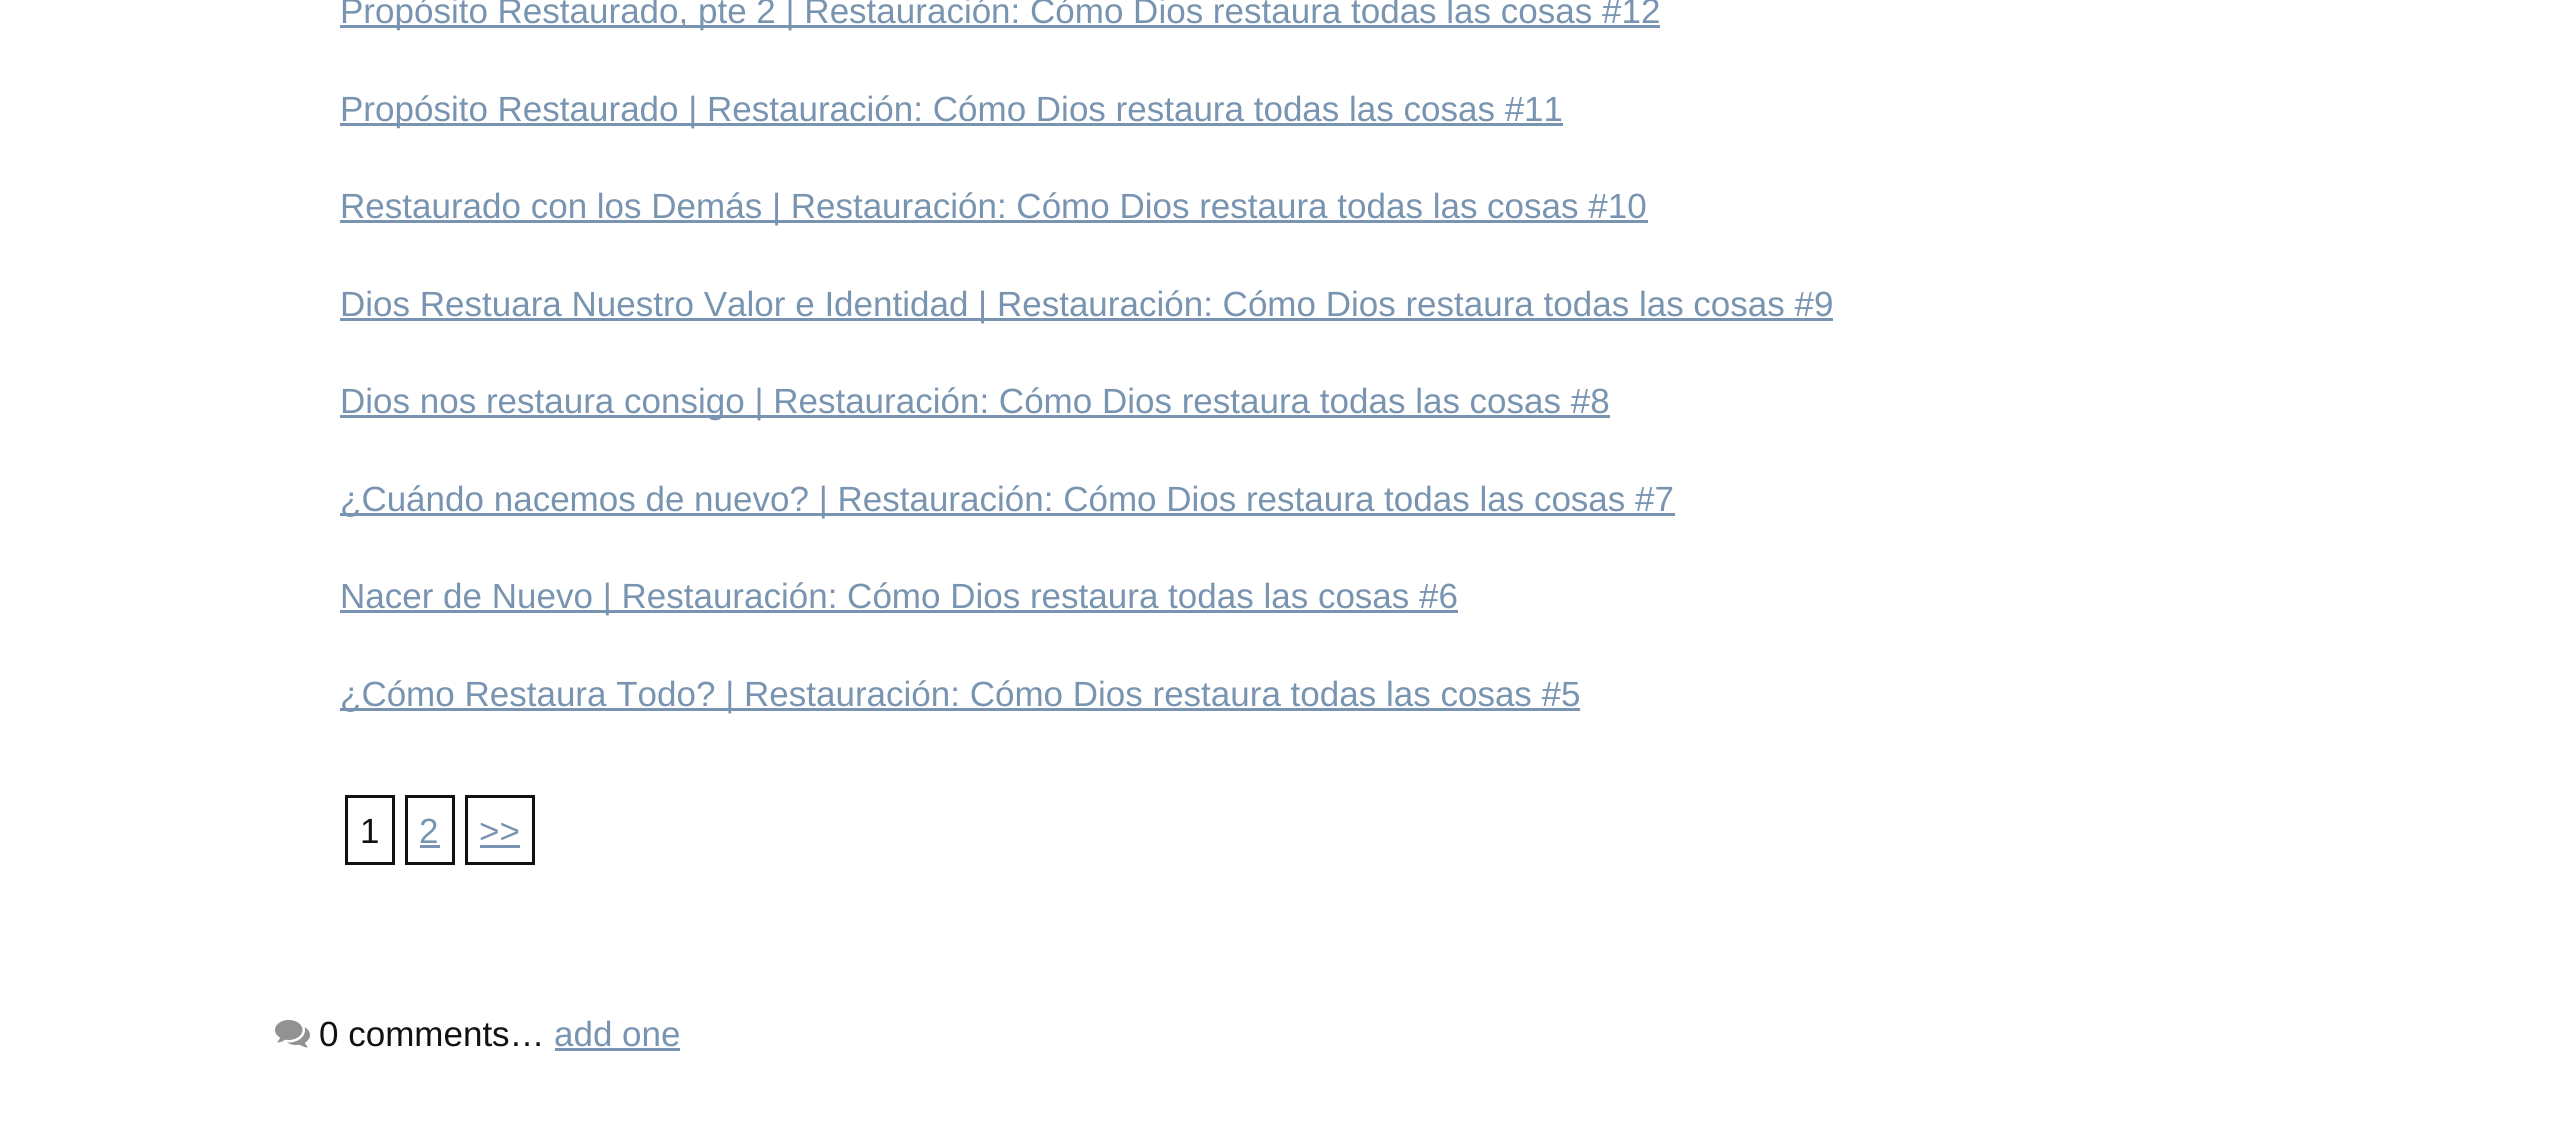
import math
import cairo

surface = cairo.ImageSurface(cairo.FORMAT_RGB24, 2549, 1126)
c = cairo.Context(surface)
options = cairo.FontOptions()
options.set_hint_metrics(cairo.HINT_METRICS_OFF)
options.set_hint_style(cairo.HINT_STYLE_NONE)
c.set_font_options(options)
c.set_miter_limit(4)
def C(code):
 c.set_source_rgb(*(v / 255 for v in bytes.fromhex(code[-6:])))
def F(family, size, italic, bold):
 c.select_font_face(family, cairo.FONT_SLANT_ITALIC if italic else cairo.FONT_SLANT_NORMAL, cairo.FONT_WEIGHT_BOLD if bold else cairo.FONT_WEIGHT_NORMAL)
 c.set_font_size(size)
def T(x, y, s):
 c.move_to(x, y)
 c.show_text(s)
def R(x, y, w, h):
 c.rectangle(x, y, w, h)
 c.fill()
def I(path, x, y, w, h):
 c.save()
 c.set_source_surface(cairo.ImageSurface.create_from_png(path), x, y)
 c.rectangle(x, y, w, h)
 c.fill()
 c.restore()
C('ffffff')
c.paint()
C('7994b0')
R(340,25,1320,3)
F('Liberation Sans',35,0,0)
T(340,23,'Propósito Restaurado, pte 2 | Restauración: Cómo Dios restaura todas las cosas #12')
R(340,123,1223,3)
T(340,121,'Propósito Restaurado | Restauración: Cómo Dios restaura todas las cosas #11')
R(340,220,1308,3)
T(340,218,'Restaurado con los Demás | Restauración: Cómo Dios restaura todas las cosas #10')
R(340,318,1493,3)
T(340,316,'Dios Restuara Nuestro Valor e Identidad | Restauración: Cómo Dios restaura todas las cosas #9')
R(340,415,1270,3)
T(340,413,'Dios nos restaura consigo | Restauración: Cómo Dios restaura todas las cosas #8')
R(340,513,1335,3)
T(340,511,'¿Cuándo nacemos de nuevo? | Restauración: Cómo Dios restaura todas las cosas #7')
R(340,610,1118,3)
T(340,608,'Nacer de Nuevo | Restauración: Cómo Dios restaura todas las cosas #6')
R(340,708,1240,3)
T(340,706,'¿Cómo Restaura Todo? | Restauración: Cómo Dios restaura todas las cosas #5')
c.rectangle(346.5,796.5,47,67)
C('111111')
c.set_line_width(3)
c.stroke()
T(360,843,'1')
c.rectangle(406.5,796.5,47,67)
c.stroke()
C('7994b0')
T(419,843,'2')
R(420,845,20,3)
c.rectangle(466.5,796.5,67,67)
C('111111')
c.stroke()
C('7994b0')
T(479,843,'>>')
R(480,845,40,3)
I('1.png',275,1020,35,28)
C('111111')
T(319,1046,'0 comments…')
C('7994b0')
T(554,1046,'add one')
R(555,1048,125,3)
surface.write_to_png('o.png')
